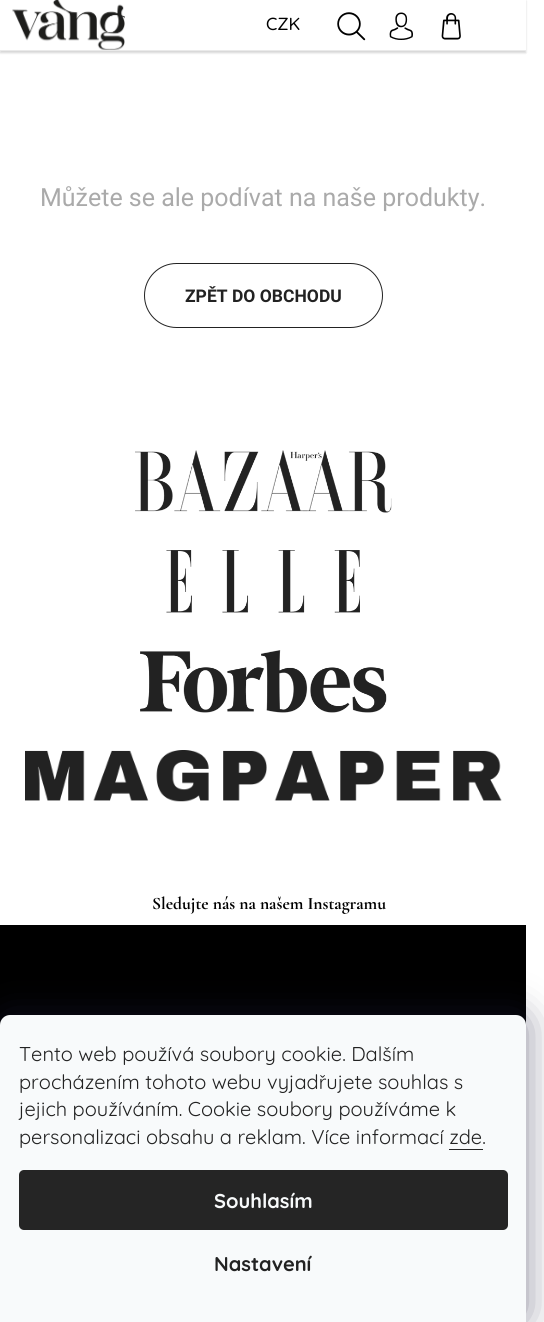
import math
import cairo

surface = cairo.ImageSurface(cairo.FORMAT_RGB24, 544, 1322)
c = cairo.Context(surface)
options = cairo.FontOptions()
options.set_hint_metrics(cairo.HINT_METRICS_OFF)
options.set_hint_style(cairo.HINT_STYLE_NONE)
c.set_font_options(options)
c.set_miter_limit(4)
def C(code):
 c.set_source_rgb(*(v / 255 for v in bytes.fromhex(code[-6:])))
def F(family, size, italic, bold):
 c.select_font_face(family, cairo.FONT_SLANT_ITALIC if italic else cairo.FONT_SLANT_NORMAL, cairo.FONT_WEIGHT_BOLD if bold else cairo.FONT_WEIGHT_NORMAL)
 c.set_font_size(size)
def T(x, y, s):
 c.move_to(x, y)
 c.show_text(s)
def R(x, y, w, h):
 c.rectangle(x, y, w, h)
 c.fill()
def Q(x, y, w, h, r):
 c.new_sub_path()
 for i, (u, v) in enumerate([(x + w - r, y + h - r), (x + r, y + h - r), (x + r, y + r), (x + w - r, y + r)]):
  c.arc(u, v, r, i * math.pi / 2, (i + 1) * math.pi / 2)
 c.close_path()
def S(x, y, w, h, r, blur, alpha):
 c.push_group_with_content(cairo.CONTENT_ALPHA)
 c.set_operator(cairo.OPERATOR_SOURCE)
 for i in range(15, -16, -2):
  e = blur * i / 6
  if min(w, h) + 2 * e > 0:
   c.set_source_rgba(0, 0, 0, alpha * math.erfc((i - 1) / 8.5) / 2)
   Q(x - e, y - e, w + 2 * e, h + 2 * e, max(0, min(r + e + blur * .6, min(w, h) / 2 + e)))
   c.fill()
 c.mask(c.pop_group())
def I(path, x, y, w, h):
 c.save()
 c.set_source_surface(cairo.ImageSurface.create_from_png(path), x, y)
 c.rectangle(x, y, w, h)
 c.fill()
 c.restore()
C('ffffff')
c.paint()
c.save()
c.set_fill_rule(cairo.FILL_RULE_EVEN_ODD)
c.new_path()
c.move_to(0,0)
c.line_to(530,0)
c.line_to(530,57)
c.line_to(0,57)
c.close_path()
c.move_to(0,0)
c.line_to(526,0)
c.line_to(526,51)
c.line_to(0,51)
c.close_path()
c.clip()
C('000000')
S(0,1,526,52,0,1,.16)
c.restore()
C('eaeaea')
R(0,50,526,1)
I('1.png',12,0,113,50)
F('Quicksand Medium',17.5,0,0)
C('000000')
T(266,30,'CZK')
I('2.png',337,12,29,29)
I('3.png',389,12,24,28)
I('4.png',441,13,20,27)
F('Roboto',25,0,0)
C('aaaaaa')
T(40,206,'Můžete se ale podívat na naše produkty.')
Q(144.5,263.5,238,64,32)
C('222222')
c.set_line_width(1)
c.stroke()
F('Roboto',17.5,0,1)
T(185,302,'ZPĚT DO OBCHODU')
I('5.png',135,450,257,63)
I('6.png',166,550,194,63)
I('7.png',140,650,247,63)
I('8.png',25,750,477,52)
F('Cormorant Garamond',17.5,0,1)
C('000000')
T(152,909,'Sledujte nás na našem Instagramu')
R(0,925,175,100)
R(175,925,176,90)
R(351,925,175,100)
C('1b1939')
S(0,1015,526,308,10,19,.5)
C('f8fafb')
c.new_path()
c.move_to(10,1015)
c.line_to(516,1015)
c.curve_to(521.5,1015,526,1019.5,526,1025)
c.line_to(526,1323)
c.line_to(0,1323)
c.line_to(0,1025)
c.curve_to(0,1019.5,4.5,1015,10,1015)
c.close_path()
c.fill()
F('Quicksand',20,0,0)
C('222222')
T(19,1061,'Tento web používá soubory cookie. Dalším')
T(19,1089,'procházením tohoto webu vyjadřujete souhlas s')
T(19,1116,'jejich používáním. Cookie soubory používáme k')
T(19,1144,'personalizaci obsahu a reklam. Více informací zde.')
C('252525')
R(449,1149,34,1)
Q(19,1170,489,60,5)
c.fill()
F('Quicksand',20,0,1)
C('f8fafb')
T(214,1208,'Souhlasím')
C('222222')
T(214,1271,'Nastavení')
surface.write_to_png('o.png')
